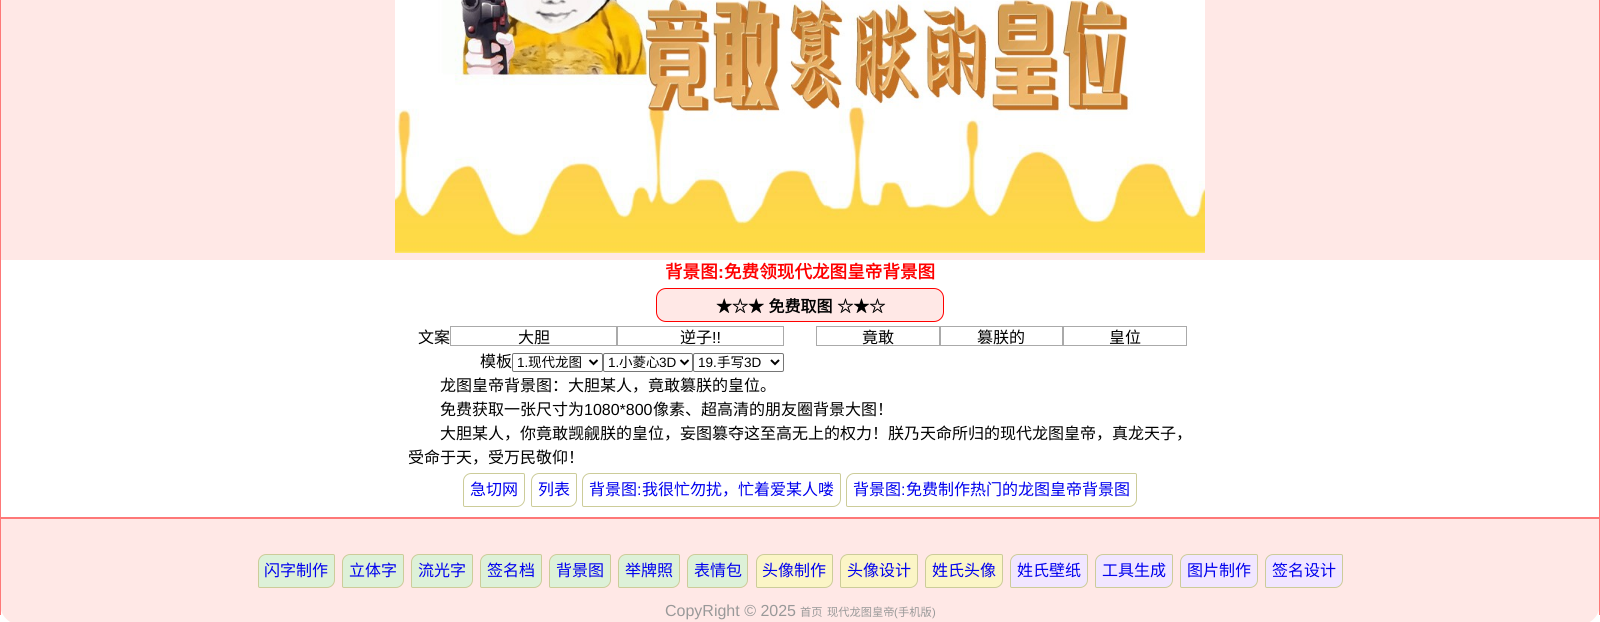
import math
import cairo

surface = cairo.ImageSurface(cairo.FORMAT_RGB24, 1600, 622)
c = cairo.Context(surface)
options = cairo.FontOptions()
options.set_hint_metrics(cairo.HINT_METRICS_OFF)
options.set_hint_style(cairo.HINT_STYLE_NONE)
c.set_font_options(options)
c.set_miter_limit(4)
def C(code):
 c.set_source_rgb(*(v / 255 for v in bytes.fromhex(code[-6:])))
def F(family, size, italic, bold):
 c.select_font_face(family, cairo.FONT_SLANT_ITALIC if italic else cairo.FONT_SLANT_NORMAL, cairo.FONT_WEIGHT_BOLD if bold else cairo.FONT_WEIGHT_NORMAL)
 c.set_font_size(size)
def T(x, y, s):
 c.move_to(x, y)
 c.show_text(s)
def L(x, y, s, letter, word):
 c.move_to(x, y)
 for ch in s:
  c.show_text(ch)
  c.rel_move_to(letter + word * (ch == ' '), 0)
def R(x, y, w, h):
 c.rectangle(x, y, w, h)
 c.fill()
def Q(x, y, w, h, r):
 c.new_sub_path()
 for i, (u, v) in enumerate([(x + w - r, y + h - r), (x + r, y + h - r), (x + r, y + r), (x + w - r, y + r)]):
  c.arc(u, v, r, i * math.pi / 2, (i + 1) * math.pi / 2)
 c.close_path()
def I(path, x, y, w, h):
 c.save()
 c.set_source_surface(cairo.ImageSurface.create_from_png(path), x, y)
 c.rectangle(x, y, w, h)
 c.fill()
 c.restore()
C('ffffff')
c.paint()
C('ffe8e6')
R(1,0,1598,260)
C('fe7878')
R(1599,0,1,518)
R(0,0,1,260)
I('1.png',395,0,810,253)
R(0,517,1600,1)
R(0,260,1,258)
F('Noto Sans CJK SC',17.6,0,1)
C('ff0000')
T(665,278,'背景图')
F('Liberation Sans',17.6,0,1)
T(718,278,':')
F('Noto Sans CJK SC',17.6,0,1)
T(724,278,'免费领现代龙图皇帝背景图')
C('ffe8e6')
Q(656.5,288.5,287,33,9.5)
c.fill_preserve()
C('ff0000')
c.set_line_width(1)
c.stroke()
F('Noto Sans CJK SC',16,0,1)
C('000000')
L(716,312,'★☆★ 免费取图 ☆★☆',0,1)
F('Noto Sans CJK SC',16,0,0)
T(418,343,'文案')
c.rectangle(450.5,326.5,166,19)
C('aaaaaa')
c.stroke()
C('000000')
T(518,343,'大胆')
c.rectangle(617.5,326.5,166,19)
C('aaaaaa')
c.stroke()
C('000000')
T(680,343,'逆子')
F('Liberation Sans',16,0,0)
T(712,343,'!!')
c.rectangle(816.5,326.5,123,19)
C('aaaaaa')
c.stroke()
F('Noto Sans CJK SC',16,0,0)
C('000000')
T(862,343,'竟敢')
c.rectangle(940.5,326.5,122,19)
C('aaaaaa')
c.stroke()
C('000000')
T(977,343,'篡朕的')
c.rectangle(1063.5,326.5,123,19)
C('aaaaaa')
c.stroke()
C('000000')
T(1109,343,'皇位')
T(480,367,'模板')
Q(512.5,353.5,90,18,1.5)
C('767676')
c.stroke()
c.new_path()
c.move_to(589.5,360)
c.line_to(593.5,364)
c.line_to(597.5,360)
C('000000')
c.set_line_width(2)
c.stroke()
F('Liberation Sans',13.5,0,0)
T(517,367,'1.')
F('Noto Sans CJK SC',13.5,0,0)
T(528,367,'现代龙图')
Q(603.5,353.5,89,18,1.5)
C('767676')
c.set_line_width(1)
c.stroke()
c.new_path()
c.move_to(680.5,360)
c.line_to(684.5,364)
c.line_to(688.5,360)
C('000000')
c.set_line_width(2)
c.stroke()
F('Liberation Sans',13.5,0,0)
T(608,367,'1.')
F('Noto Sans CJK SC',13.5,0,0)
T(619,367,'小菱心')
F('Liberation Sans',13.5,0,0)
T(659,367,'3D')
Q(693.5,353.5,90,18,1.5)
C('767676')
c.set_line_width(1)
c.stroke()
c.new_path()
c.move_to(771,360)
c.line_to(775,364)
c.line_to(779,360)
C('000000')
c.set_line_width(2)
c.stroke()
T(698,367,'19.')
F('Noto Sans CJK SC',13.5,0,0)
T(717,367,'手写')
F('Liberation Sans',13.5,0,0)
T(744,367,'3D')
F('Noto Sans CJK SC',16,0,0)
T(440,391,'龙图皇帝背景图：大胆某人，竟敢篡朕的皇位。')
T(440,415,'免费获取一张尺寸为')
F('Liberation Sans',16,0,0)
T(584,415,'1080*800')
F('Noto Sans CJK SC',16,0,0)
T(653,415,'像素、超高清的朋友圈背景大图！')
T(440,439,'大胆某人，你竟敢觊觎朕的皇位，妄图篡夺这至高无上的权力！朕乃天命所归的现代龙图皇帝，真龙天子，')
T(408,463,'受命于天，受万民敬仰！')
c.new_path()
c.move_to(471,473.5)
c.line_to(523,473.5)
c.curve_to(524,473.5,524.5,474,524.5,475)
c.line_to(524.5,499)
c.curve_to(524.5,503,521,506.5,517,506.5)
c.line_to(465,506.5)
c.curve_to(464,506.5,463.5,506,463.5,505)
c.line_to(463.5,481)
c.curve_to(463.5,477,467,473.5,471,473.5)
c.close_path()
C('cccc99')
c.set_line_width(1)
c.stroke()
C('0000ee')
T(470,495,'急切网')
c.new_path()
c.move_to(539,473.5)
c.line_to(575,473.5)
c.curve_to(576,473.5,576.5,474,576.5,475)
c.line_to(576.5,499)
c.curve_to(576.5,503,573,506.5,569,506.5)
c.line_to(533,506.5)
c.curve_to(532,506.5,531.5,506,531.5,505)
c.line_to(531.5,481)
c.curve_to(531.5,477,535,473.5,539,473.5)
c.close_path()
C('cccc99')
c.stroke()
C('0000ee')
T(538,495,'列表')
c.new_path()
c.move_to(590,473.5)
c.line_to(839,473.5)
c.curve_to(840,473.5,840.5,474,840.5,475)
c.line_to(840.5,499)
c.curve_to(840.5,503,837,506.5,833,506.5)
c.line_to(584,506.5)
c.curve_to(583,506.5,582.5,506,582.5,505)
c.line_to(582.5,481)
c.curve_to(582.5,477,586,473.5,590,473.5)
c.close_path()
C('cccc99')
c.stroke()
C('0000ee')
T(589,495,'背景图')
F('Liberation Sans',16,0,0)
T(637,495,':')
F('Noto Sans CJK SC',16,0,0)
T(642,495,'我很忙勿扰，忙着爱某人喽')
c.new_path()
c.move_to(854,473.5)
c.line_to(1135,473.5)
c.curve_to(1136,473.5,1136.5,474,1136.5,475)
c.line_to(1136.5,499)
c.curve_to(1136.5,503,1133,506.5,1129,506.5)
c.line_to(848,506.5)
c.curve_to(847,506.5,846.5,506,846.5,505)
c.line_to(846.5,481)
c.curve_to(846.5,477,850,473.5,854,473.5)
c.close_path()
C('cccc99')
c.stroke()
C('0000ee')
T(853,495,'背景图')
F('Liberation Sans',16,0,0)
T(901,495,':')
F('Noto Sans CJK SC',16,0,0)
T(906,495,'免费制作热门的龙图皇帝背景图')
C('ffe8e6')
c.new_path()
c.move_to(0,518)
c.line_to(1600,518)
c.line_to(1600,604)
c.curve_to(1600,615.5,1590.5,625,1579,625)
c.line_to(21,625)
c.curve_to(9.5,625,0,615.5,0,604)
c.close_path()
c.fill()
C('fe7878')
R(0,518,1600,1)
R(1599,518,1,97)
R(0,518,1,97)
C('ddf1d8')
c.new_path()
c.move_to(266,554.5)
c.line_to(333,554.5)
c.curve_to(334,554.5,334.5,555,334.5,556)
c.line_to(334.5,580)
c.curve_to(334.5,584,331,587.5,327,587.5)
c.line_to(260,587.5)
c.curve_to(259,587.5,258.5,587,258.5,586)
c.line_to(258.5,562)
c.curve_to(258.5,558,262,554.5,266,554.5)
c.close_path()
c.fill_preserve()
C('cccc99')
c.stroke()
C('0000ee')
T(264,576,'闪字制作')
C('ddf1d8')
c.new_path()
c.move_to(350,554.5)
c.line_to(402,554.5)
c.curve_to(403,554.5,403.5,555,403.5,556)
c.line_to(403.5,580)
c.curve_to(403.5,584,400,587.5,396,587.5)
c.line_to(344,587.5)
c.curve_to(343,587.5,342.5,587,342.5,586)
c.line_to(342.5,562)
c.curve_to(342.5,558,346,554.5,350,554.5)
c.close_path()
c.fill_preserve()
C('cccc99')
c.stroke()
C('0000ee')
T(349,576,'立体字')
C('ddf1d8')
c.new_path()
c.move_to(419,554.5)
c.line_to(471,554.5)
c.curve_to(472,554.5,472.5,555,472.5,556)
c.line_to(472.5,580)
c.curve_to(472.5,584,469,587.5,465,587.5)
c.line_to(413,587.5)
c.curve_to(412,587.5,411.5,587,411.5,586)
c.line_to(411.5,562)
c.curve_to(411.5,558,415,554.5,419,554.5)
c.close_path()
c.fill_preserve()
C('cccc99')
c.stroke()
C('0000ee')
T(418,576,'流光字')
C('ddf1d8')
c.new_path()
c.move_to(488,554.5)
c.line_to(540,554.5)
c.curve_to(541,554.5,541.5,555,541.5,556)
c.line_to(541.5,580)
c.curve_to(541.5,584,538,587.5,534,587.5)
c.line_to(482,587.5)
c.curve_to(481,587.5,480.5,587,480.5,586)
c.line_to(480.5,562)
c.curve_to(480.5,558,484,554.5,488,554.5)
c.close_path()
c.fill_preserve()
C('cccc99')
c.stroke()
C('0000ee')
T(487,576,'签名档')
C('ddf1d8')
c.new_path()
c.move_to(557,554.5)
c.line_to(609,554.5)
c.curve_to(610,554.5,610.5,555,610.5,556)
c.line_to(610.5,580)
c.curve_to(610.5,584,607,587.5,603,587.5)
c.line_to(551,587.5)
c.curve_to(550,587.5,549.5,587,549.5,586)
c.line_to(549.5,562)
c.curve_to(549.5,558,553,554.5,557,554.5)
c.close_path()
c.fill_preserve()
C('cccc99')
c.stroke()
C('0000ee')
T(556,576,'背景图')
C('ddf1d8')
c.new_path()
c.move_to(626,554.5)
c.line_to(678,554.5)
c.curve_to(679,554.5,679.5,555,679.5,556)
c.line_to(679.5,580)
c.curve_to(679.5,584,676,587.5,672,587.5)
c.line_to(620,587.5)
c.curve_to(619,587.5,618.5,587,618.5,586)
c.line_to(618.5,562)
c.curve_to(618.5,558,622,554.5,626,554.5)
c.close_path()
c.fill_preserve()
C('cccc99')
c.stroke()
C('0000ee')
T(625,576,'举牌照')
C('ddf1d8')
c.new_path()
c.move_to(695,554.5)
c.line_to(746,554.5)
c.curve_to(747,554.5,747.5,555,747.5,556)
c.line_to(747.5,580)
c.curve_to(747.5,584,744,587.5,740,587.5)
c.line_to(689,587.5)
c.curve_to(688,587.5,687.5,587,687.5,586)
c.line_to(687.5,562)
c.curve_to(687.5,558,691,554.5,695,554.5)
c.close_path()
c.fill_preserve()
C('cccc99')
c.stroke()
C('0000ee')
T(694,576,'表情包')
C('fbf5c6')
c.new_path()
c.move_to(764,554.5)
c.line_to(831,554.5)
c.curve_to(832,554.5,832.5,555,832.5,556)
c.line_to(832.5,580)
c.curve_to(832.5,584,829,587.5,825,587.5)
c.line_to(758,587.5)
c.curve_to(757,587.5,756.5,587,756.5,586)
c.line_to(756.5,562)
c.curve_to(756.5,558,760,554.5,764,554.5)
c.close_path()
c.fill_preserve()
C('cccc99')
c.stroke()
C('0000ee')
T(762,576,'头像制作')
C('fbf5c6')
c.new_path()
c.move_to(848,554.5)
c.line_to(916,554.5)
c.curve_to(917,554.5,917.5,555,917.5,556)
c.line_to(917.5,580)
c.curve_to(917.5,584,914,587.5,910,587.5)
c.line_to(842,587.5)
c.curve_to(841,587.5,840.5,587,840.5,586)
c.line_to(840.5,562)
c.curve_to(840.5,558,844,554.5,848,554.5)
c.close_path()
c.fill_preserve()
C('cccc99')
c.stroke()
C('0000ee')
T(847,576,'头像设计')
C('fbf5c6')
c.new_path()
c.move_to(933,554.5)
c.line_to(1001,554.5)
c.curve_to(1002,554.5,1002.5,555,1002.5,556)
c.line_to(1002.5,580)
c.curve_to(1002.5,584,999,587.5,995,587.5)
c.line_to(927,587.5)
c.curve_to(926,587.5,925.5,587,925.5,586)
c.line_to(925.5,562)
c.curve_to(925.5,558,929,554.5,933,554.5)
c.close_path()
c.fill_preserve()
C('cccc99')
c.stroke()
C('0000ee')
T(932,576,'姓氏头像')
C('f1e6ff')
c.new_path()
c.move_to(1018,554.5)
c.line_to(1086,554.5)
c.curve_to(1087,554.5,1087.5,555,1087.5,556)
c.line_to(1087.5,580)
c.curve_to(1087.5,584,1084,587.5,1080,587.5)
c.line_to(1012,587.5)
c.curve_to(1011,587.5,1010.5,587,1010.5,586)
c.line_to(1010.5,562)
c.curve_to(1010.5,558,1014,554.5,1018,554.5)
c.close_path()
c.fill_preserve()
C('cccc99')
c.stroke()
C('0000ee')
T(1017,576,'姓氏壁纸')
C('f1e6ff')
c.new_path()
c.move_to(1103,554.5)
c.line_to(1171,554.5)
c.curve_to(1172,554.5,1172.5,555,1172.5,556)
c.line_to(1172.5,580)
c.curve_to(1172.5,584,1169,587.5,1165,587.5)
c.line_to(1097,587.5)
c.curve_to(1096,587.5,1095.5,587,1095.5,586)
c.line_to(1095.5,562)
c.curve_to(1095.5,558,1099,554.5,1103,554.5)
c.close_path()
c.fill_preserve()
C('cccc99')
c.stroke()
C('0000ee')
T(1102,576,'工具生成')
C('f1e6ff')
c.new_path()
c.move_to(1188,554.5)
c.line_to(1256,554.5)
c.curve_to(1257,554.5,1257.5,555,1257.5,556)
c.line_to(1257.5,580)
c.curve_to(1257.5,584,1254,587.5,1250,587.5)
c.line_to(1182,587.5)
c.curve_to(1181,587.5,1180.5,587,1180.5,586)
c.line_to(1180.5,562)
c.curve_to(1180.5,558,1184,554.5,1188,554.5)
c.close_path()
c.fill_preserve()
C('cccc99')
c.stroke()
C('0000ee')
T(1187,576,'图片制作')
C('f1e6ff')
c.new_path()
c.move_to(1273,554.5)
c.line_to(1341,554.5)
c.curve_to(1342,554.5,1342.5,555,1342.5,556)
c.line_to(1342.5,580)
c.curve_to(1342.5,584,1339,587.5,1335,587.5)
c.line_to(1267,587.5)
c.curve_to(1266,587.5,1265.5,587,1265.5,586)
c.line_to(1265.5,562)
c.curve_to(1265.5,558,1269,554.5,1273,554.5)
c.close_path()
c.fill_preserve()
C('cccc99')
c.stroke()
C('0000ee')
T(1272,576,'签名设计')
F('Liberation Sans',16,0,0)
C('999999')
T(665,616,'CopyRight © 2025')
F('Noto Sans CJK SC',11.25,0,0)
T(800,616,'首页')
T(827,616,'现代龙图皇帝')
F('Liberation Sans',11.25,0,0)
T(894,616,'(')
F('Noto Sans CJK SC',11.25,0,0)
T(898,616,'手机版')
F('Liberation Sans',11.25,0,0)
T(932,616,')')
surface.write_to_png('o.png')
